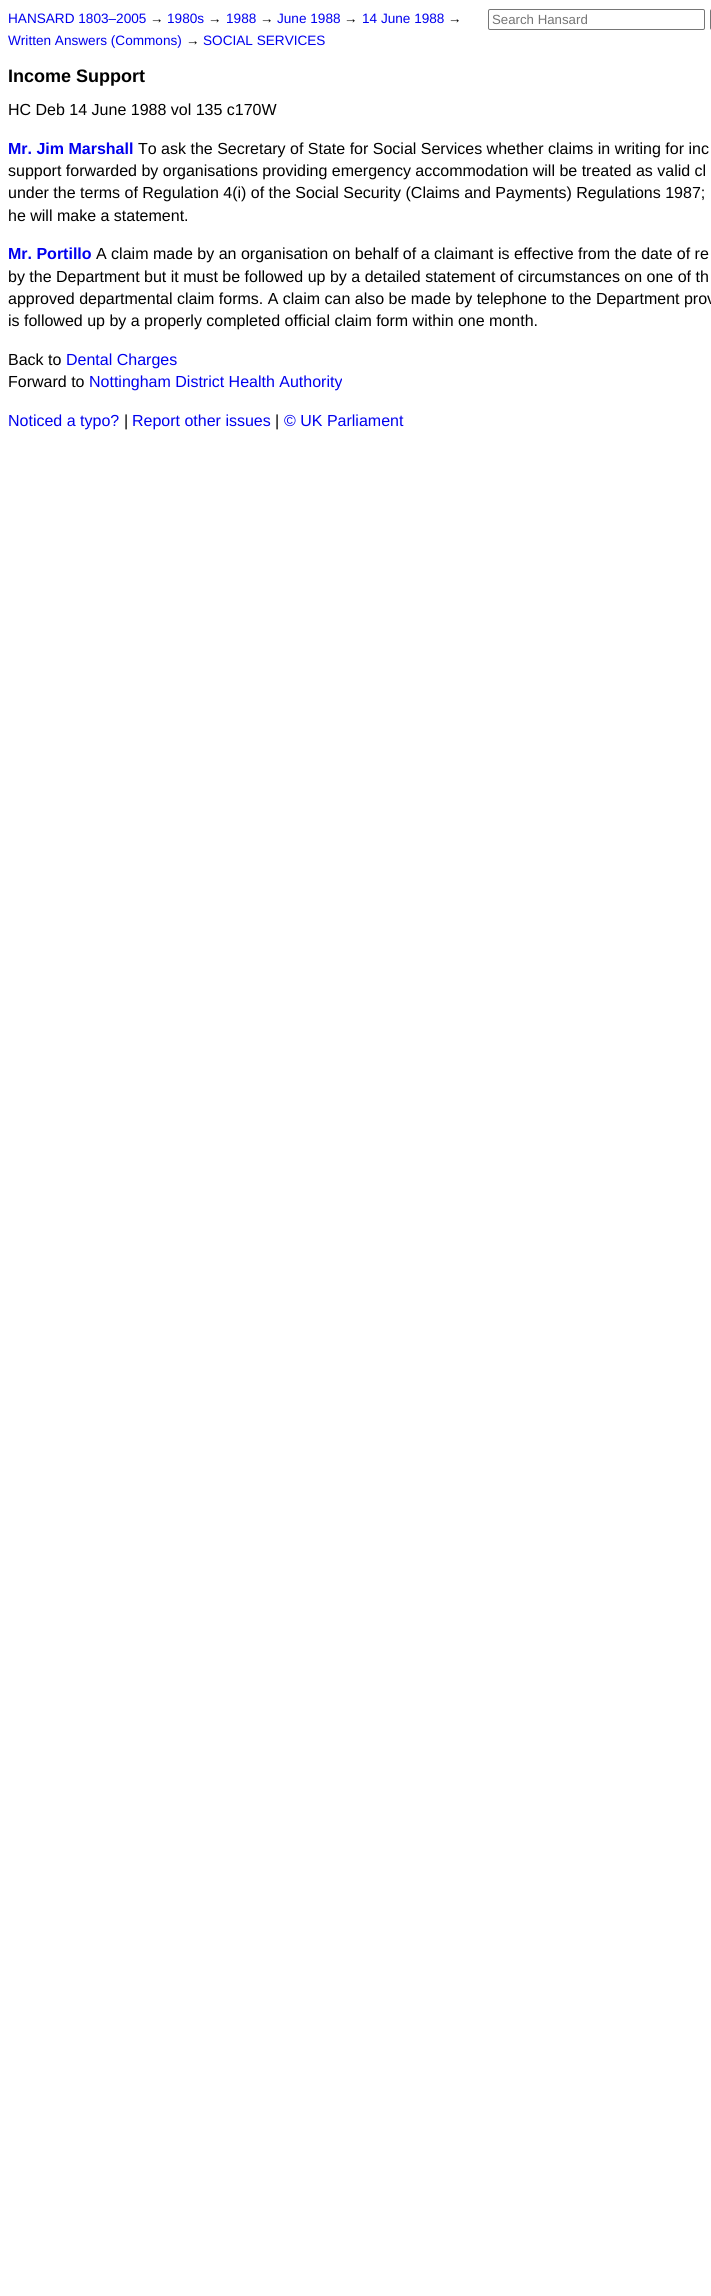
import math
import cairo

surface = cairo.ImageSurface(cairo.FORMAT_RGB24, 711, 2296)
c = cairo.Context(surface)
options = cairo.FontOptions()
options.set_hint_metrics(cairo.HINT_METRICS_OFF)
options.set_hint_style(cairo.HINT_STYLE_NONE)
c.set_font_options(options)
c.set_miter_limit(4)
def C(code):
 c.set_source_rgb(*(v / 255 for v in bytes.fromhex(code[-6:])))
def F(family, size, italic, bold):
 c.select_font_face(family, cairo.FONT_SLANT_ITALIC if italic else cairo.FONT_SLANT_NORMAL, cairo.FONT_WEIGHT_BOLD if bold else cairo.FONT_WEIGHT_NORMAL)
 c.set_font_size(size)
def T(x, y, s):
 c.move_to(x, y)
 c.show_text(s)
def Q(x, y, w, h, r):
 c.new_sub_path()
 for i, (u, v) in enumerate([(x + w - r, y + h - r), (x + r, y + h - r), (x + r, y + r), (x + w - r, y + r)]):
  c.arc(u, v, r, i * math.pi / 2, (i + 1) * math.pi / 2)
 c.close_path()
C('ffffff')
c.paint()
F('Liberation Sans',13.6,0,0)
C('0000ee')
T(8,23,'HANSARD 1803–2005')
C('000000')
T(150,23,'→')
C('0000ee')
T(167,23,'1980s')
C('000000')
T(208,23,'→')
C('0000ee')
T(226,23,'1988')
C('000000')
T(260,23,'→')
C('0000ee')
T(277,23,'June 1988')
C('000000')
T(344,23,'→')
C('0000ee')
T(362,23,'14 June 1988')
C('000000')
T(448,23,'→')
C('0000ee')
T(8,45,'Written Answers (Commons)')
C('000000')
T(186,45,'→')
C('0000ee')
T(203,45,'SOCIAL SERVICES')
Q(488.5,9.5,216,20,1.5)
C('767676')
c.set_line_width(1)
c.stroke()
F('Liberation Sans',13.25,0,0)
C('757575')
T(492,24,'Search Hansard')
Q(710.5,9.5,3,20,1.5)
C('767676')
c.stroke()
F('Liberation Sans',18,0,1)
C('000000')
T(8,82,'Income Support')
F('Liberation Sans',16,0,0)
T(8,115,'HC Deb 14 June 1988 vol 135 c170W')
F('Liberation Sans',16,0,1)
C('0000ee')
T(8,154,'Mr. Jim Marshall')
F('Liberation Sans',16,0,0)
C('000000')
T(138,154,'To ask the Secretary of State for Social Services whether claims in writing for inc')
T(8,176,'support forwarded by organisations providing emergency accommodation will be treated as valid cl')
T(8,198,'under the terms of Regulation 4(i) of the Social Security (Claims and Payments) Regulations 1987;')
T(8,221,'he will make a statement.')
F('Liberation Sans',16,0,1)
C('0000ee')
T(8,259,'Mr. Portillo')
F('Liberation Sans',16,0,0)
C('000000')
T(96,259,'A claim made by an organisation on behalf of a claimant is effective from the date of re')
T(8,282,'by the Department but it must be followed up by a detailed statement of circumstances on one of th')
T(8,304,'approved departmental claim forms. A claim can also be made by telephone to the Department prov')
T(8,326,'is followed up by a properly completed official claim form within one month.')
T(8,365,'Back to')
C('0000ee')
T(66,365,'Dental Charges')
C('000000')
T(8,387,'Forward to')
C('0000ee')
T(89,387,'Nottingham District Health Authority')
T(8,426,'Noticed a typo?')
C('000000')
T(124,426,'|')
C('0000ee')
T(132,426,'Report other issues')
C('000000')
T(275,426,'|')
C('0000ee')
T(284,426,'© UK Parliament')
surface.write_to_png('o.png')
